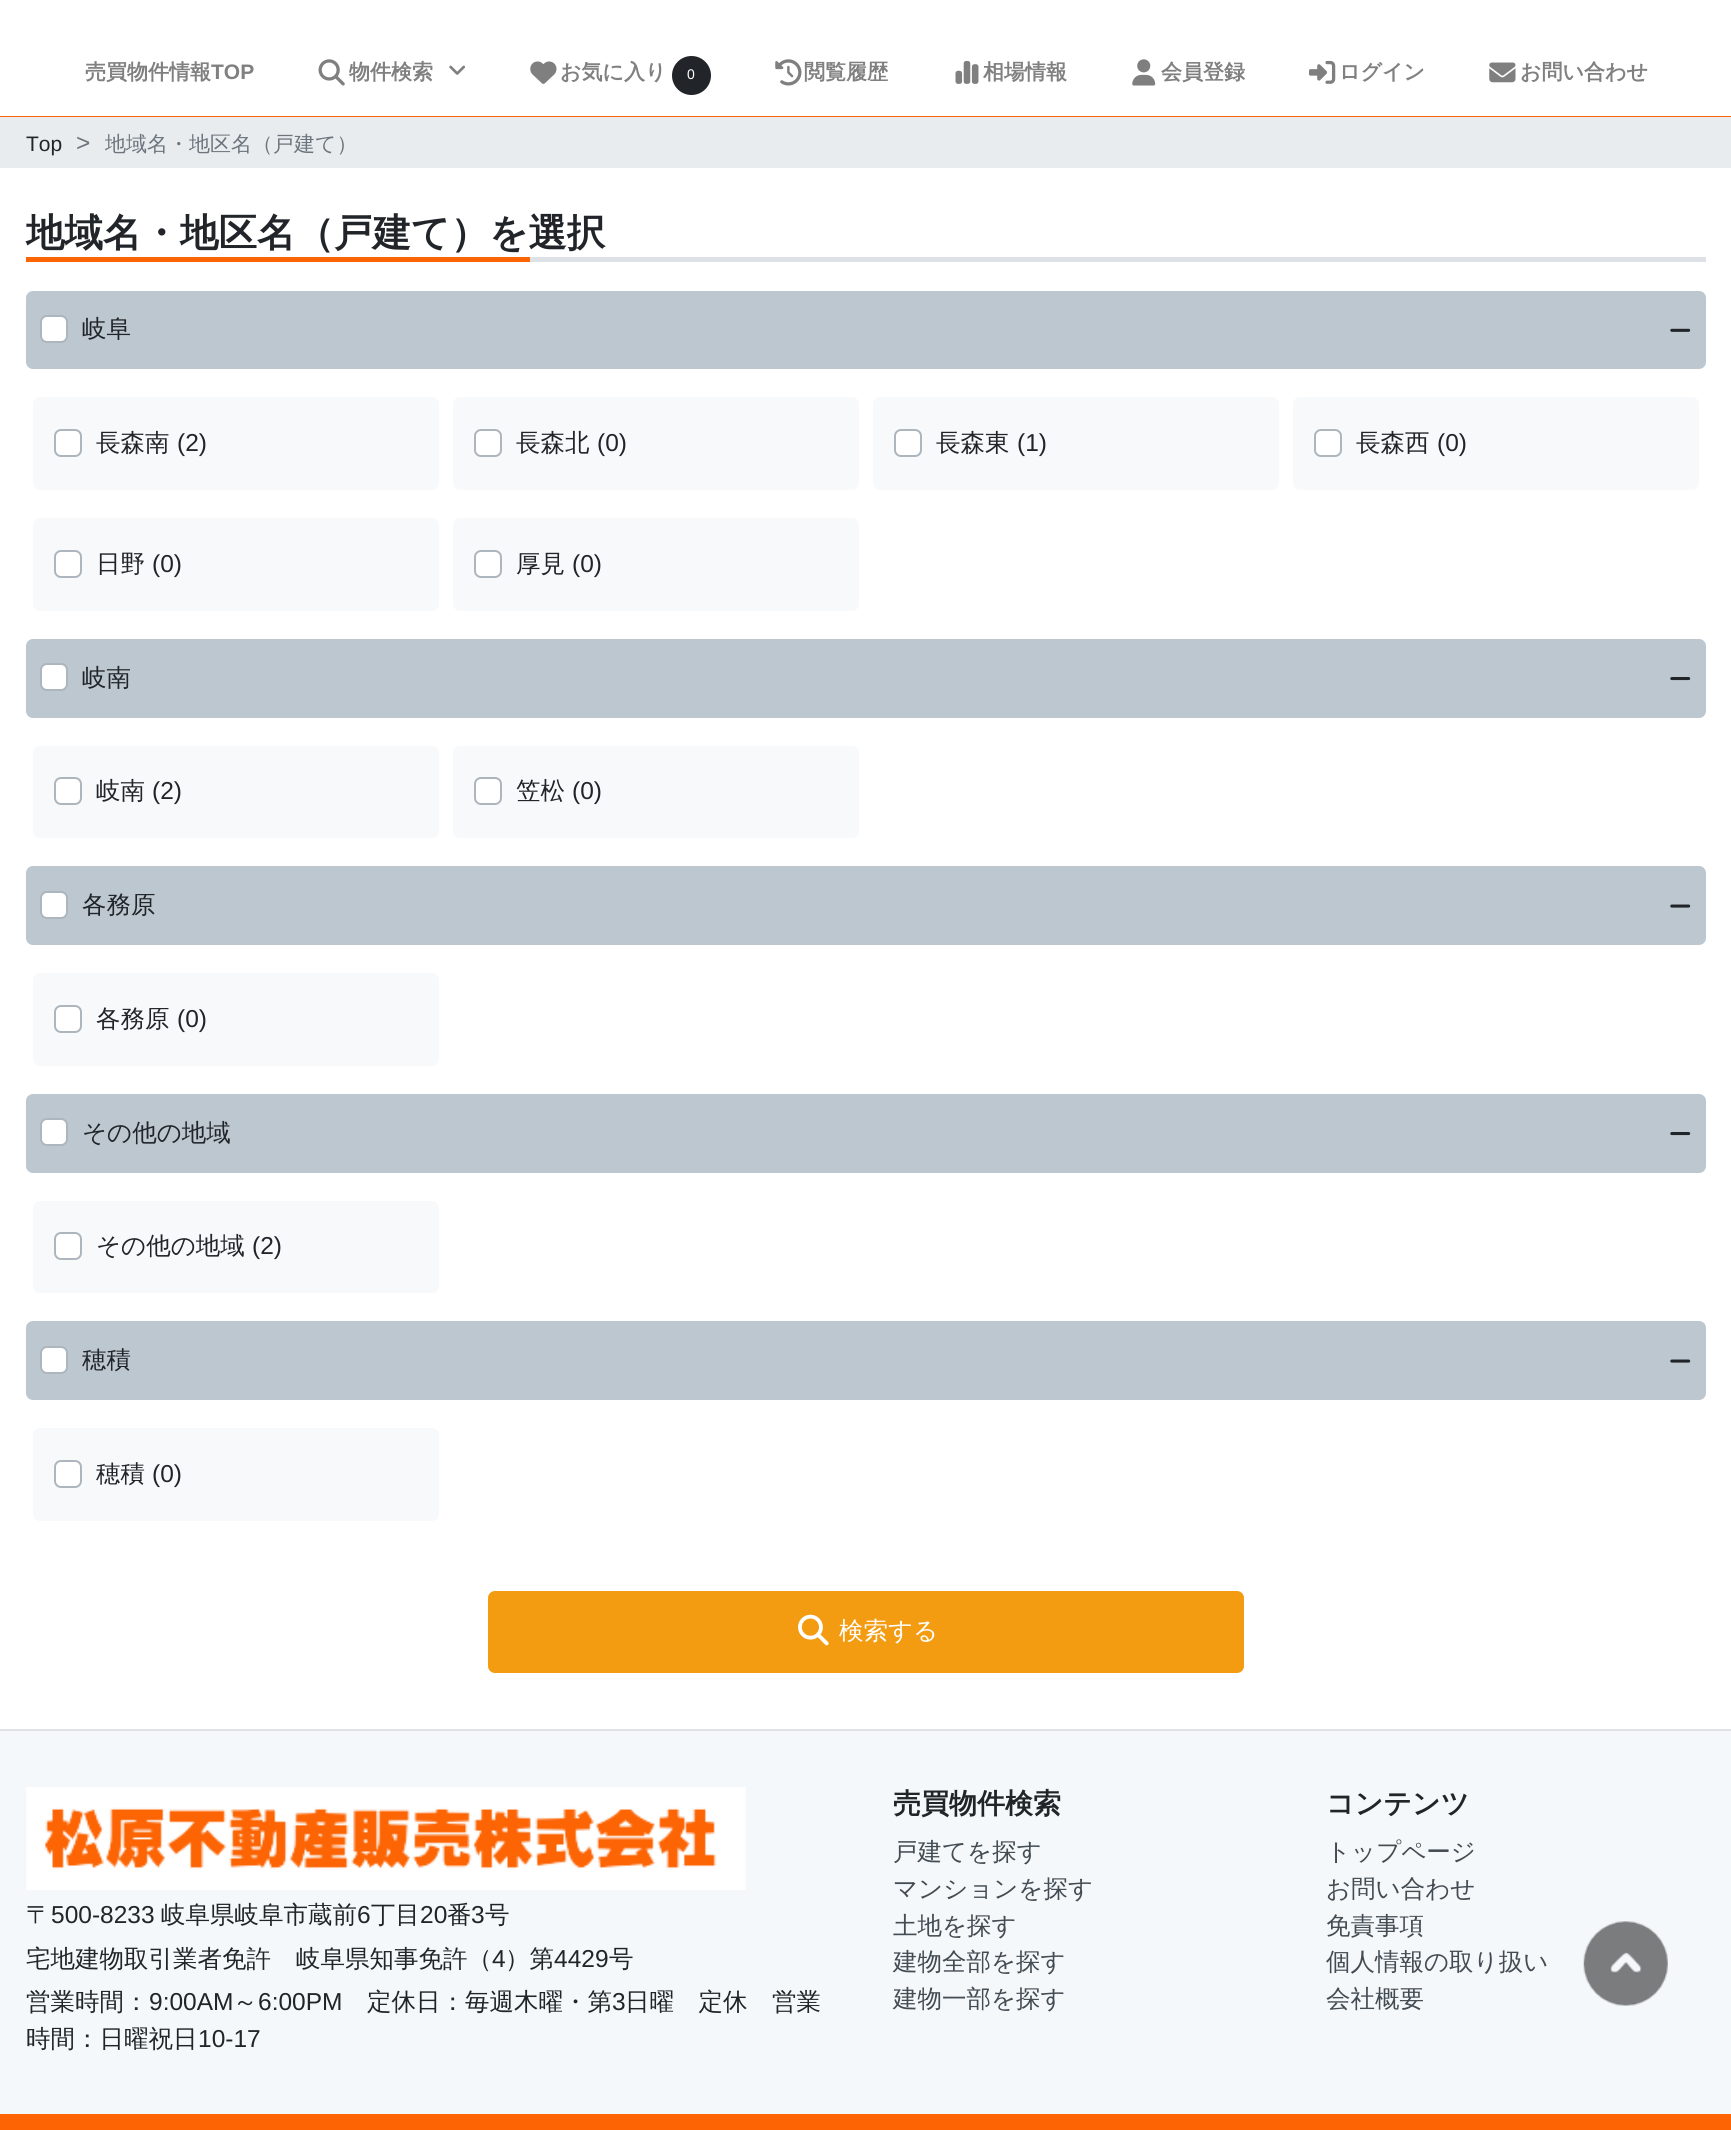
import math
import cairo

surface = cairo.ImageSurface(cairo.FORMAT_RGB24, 1731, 2130)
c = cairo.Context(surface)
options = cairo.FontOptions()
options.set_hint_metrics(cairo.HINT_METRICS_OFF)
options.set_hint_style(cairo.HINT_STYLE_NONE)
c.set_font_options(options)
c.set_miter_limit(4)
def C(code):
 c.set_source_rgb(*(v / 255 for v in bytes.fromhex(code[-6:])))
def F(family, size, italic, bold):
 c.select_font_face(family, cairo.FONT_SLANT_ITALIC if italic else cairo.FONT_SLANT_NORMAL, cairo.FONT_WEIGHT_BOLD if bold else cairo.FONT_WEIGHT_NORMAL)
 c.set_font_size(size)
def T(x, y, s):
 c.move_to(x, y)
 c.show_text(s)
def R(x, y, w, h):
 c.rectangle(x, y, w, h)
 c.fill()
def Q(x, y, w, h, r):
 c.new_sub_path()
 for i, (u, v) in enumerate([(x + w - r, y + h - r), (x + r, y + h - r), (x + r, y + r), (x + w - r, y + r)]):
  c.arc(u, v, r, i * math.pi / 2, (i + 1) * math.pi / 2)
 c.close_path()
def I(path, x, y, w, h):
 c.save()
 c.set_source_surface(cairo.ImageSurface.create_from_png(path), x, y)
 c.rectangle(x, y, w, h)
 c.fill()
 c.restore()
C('ffffff')
c.paint()
C('fc6404')
R(0,116,1731,1)
F('WenQuanYi Zen Hei',21,0,1)
C('808080')
T(85,79,'売買物件情報')
F('Liberation Sans',21,0,1)
T(211,79,'TOP')
I('1.png',318,59,27,27)
F('WenQuanYi Zen Hei',21,0,1)
T(349,79,'物件検索')
I('2.png',449,65,16,10)
I('3.png',530,61,27,23)
T(560,79,'お気に入り')
C('212529')
c.new_path()
c.arc(691.5,75.5,19.5,0,2 * math.pi)
c.fill()
F('Liberation Sans',14,0,0)
C('ffffff')
T(687,79,'0')
I('4.png',775,59,27,27)
F('WenQuanYi Zen Hei',21,0,1)
C('808080')
T(804,79,'閲覧履歴')
I('5.png',955,60,24,24)
T(983,79,'相場情報')
I('6.png',1132,59,24,27)
T(1161,79,'会員登録')
I('7.png',1309,60,27,24)
T(1339,79,'ログイン')
I('8.png',1489,62,27,21)
T(1520,79,'お問い合わせ')
C('e9ecef')
R(0,117,1731,51)
F('Liberation Sans',21,0,0)
C('212529')
T(26,151,'Top')
F('Liberation Sans',24.5,0,0)
C('6c757d')
T(76,151,'>')
F('WenQuanYi Zen Hei Medium',21,0,0)
T(105,151,'地域名・地区名（戸建て）')
C('dee2e6')
R(530,257,1176,5)
F('WenQuanYi Zen Hei',38.5,0,1)
C('212529')
T(26,246,'地域名・地区名（戸建て）を選択')
C('fc6404')
R(26,257,504,5)
C('bcc7d0')
Q(26,291,1680,78,7)
c.fill()
C('ffffff')
Q(41,316,26,26,6)
c.fill_preserve()
C('adb5bd')
c.stroke()
F('WenQuanYi Zen Hei Medium',24.5,0,0)
C('212529')
T(82,337,'岐阜')
I('9.png',1670,328,21,4)
C('f8f9fa')
Q(33,397,406,93,7)
c.fill()
C('ffffff')
Q(55,430,26,26,6)
c.fill_preserve()
C('adb5bd')
c.stroke()
C('212529')
T(96,451,'長森南')
F('Liberation Sans',24.5,0,0)
T(177,451,'(2)')
C('f8f9fa')
Q(453,397,406,93,7)
c.fill()
C('ffffff')
Q(475,430,26,26,6)
c.fill_preserve()
C('adb5bd')
c.stroke()
F('WenQuanYi Zen Hei Medium',24.5,0,0)
C('212529')
T(516,451,'長森北')
F('Liberation Sans',24.5,0,0)
T(597,451,'(0)')
C('f8f9fa')
Q(873,397,406,93,7)
c.fill()
C('ffffff')
Q(895,430,26,26,6)
c.fill_preserve()
C('adb5bd')
c.stroke()
F('WenQuanYi Zen Hei Medium',24.5,0,0)
C('212529')
T(936,451,'長森東')
F('Liberation Sans',24.5,0,0)
T(1017,451,'(1)')
C('f8f9fa')
Q(1293,397,406,93,7)
c.fill()
C('ffffff')
Q(1315,430,26,26,6)
c.fill_preserve()
C('adb5bd')
c.stroke()
F('WenQuanYi Zen Hei Medium',24.5,0,0)
C('212529')
T(1356,451,'長森西')
F('Liberation Sans',24.5,0,0)
T(1437,451,'(0)')
C('f8f9fa')
Q(33,518,406,93,7)
c.fill()
C('ffffff')
Q(55,551,26,26,6)
c.fill_preserve()
C('adb5bd')
c.stroke()
F('WenQuanYi Zen Hei Medium',24.5,0,0)
C('212529')
T(96,572,'日野')
F('Liberation Sans',24.5,0,0)
T(152,572,'(0)')
C('f8f9fa')
Q(453,518,406,93,7)
c.fill()
C('ffffff')
Q(475,551,26,26,6)
c.fill_preserve()
C('adb5bd')
c.stroke()
F('WenQuanYi Zen Hei Medium',24.5,0,0)
C('212529')
T(516,572,'厚見')
F('Liberation Sans',24.5,0,0)
T(572,572,'(0)')
C('bcc7d0')
Q(26,639,1680,79,7)
c.fill()
C('ffffff')
Q(41,664,26,26,6)
c.fill_preserve()
C('adb5bd')
c.stroke()
F('WenQuanYi Zen Hei Medium',24.5,0,0)
C('212529')
T(82,686,'岐南')
I('10.png',1670,677,21,4)
C('f8f9fa')
Q(33,746,406,92,7)
c.fill()
C('ffffff')
Q(55,778,26,26,6)
c.fill_preserve()
C('adb5bd')
c.stroke()
C('212529')
T(96,799,'岐南')
F('Liberation Sans',24.5,0,0)
T(152,799,'(2)')
C('f8f9fa')
Q(453,746,406,92,7)
c.fill()
C('ffffff')
Q(475,778,26,26,6)
c.fill_preserve()
C('adb5bd')
c.stroke()
F('WenQuanYi Zen Hei Medium',24.5,0,0)
C('212529')
T(516,799,'笠松')
F('Liberation Sans',24.5,0,0)
T(572,799,'(0)')
C('bcc7d0')
Q(26,866,1680,79,7)
c.fill()
C('ffffff')
Q(41,892,26,26,6)
c.fill_preserve()
C('adb5bd')
c.stroke()
F('WenQuanYi Zen Hei Medium',24.5,0,0)
C('212529')
T(82,913,'各務原')
I('11.png',1670,904,21,4)
C('f8f9fa')
Q(33,973,406,93,7)
c.fill()
C('ffffff')
Q(55,1006,26,26,6)
c.fill_preserve()
C('adb5bd')
c.stroke()
C('212529')
T(96,1027,'各務原')
F('Liberation Sans',24.5,0,0)
T(177,1027,'(0)')
C('bcc7d0')
Q(26,1094,1680,79,7)
c.fill()
C('ffffff')
Q(41,1119,26,26,6)
c.fill_preserve()
C('adb5bd')
c.stroke()
F('WenQuanYi Zen Hei Medium',24.5,0,0)
C('212529')
T(82,1141,'その他の地域')
I('10.png',1670,1132,21,4)
C('f8f9fa')
Q(33,1201,406,92,7)
c.fill()
C('ffffff')
Q(55,1233,26,26,6)
c.fill_preserve()
C('adb5bd')
c.stroke()
C('212529')
T(96,1254,'その他の地域')
F('Liberation Sans',24.5,0,0)
T(252,1254,'(2)')
C('bcc7d0')
Q(26,1321,1680,79,7)
c.fill()
C('ffffff')
Q(41,1347,26,26,6)
c.fill_preserve()
C('adb5bd')
c.stroke()
F('WenQuanYi Zen Hei Medium',24.5,0,0)
C('212529')
T(82,1368,'穂積')
I('11.png',1670,1359,21,4)
C('f8f9fa')
Q(33,1428,406,93,7)
c.fill()
C('ffffff')
Q(55,1461,26,26,6)
c.fill_preserve()
C('adb5bd')
c.stroke()
C('212529')
T(96,1482,'穂積')
F('Liberation Sans',24.5,0,0)
T(152,1482,'(0)')
C('f39c12')
Q(489,1592,754,80,6)
c.fill_preserve()
c.stroke()
I('12.png',798,1614,31,32)
F('WenQuanYi Zen Hei Medium',24.5,0,0)
C('ffffff')
T(839,1639,'検索する')
C('f5f8fa')
R(0,1731,1731,383)
C('dee2e6')
R(0,1729,1731,2)
I('13.png',26,1787,720,103)
C('212529')
T(26,1923,'〒')
F('Liberation Sans',24.5,0,0)
T(51,1923,'500-8233')
F('WenQuanYi Zen Hei Medium',24.5,0,0)
T(161,1923,'岐阜県岐阜市蔵前')
F('Liberation Sans',24.5,0,0)
T(357,1923,'6')
F('WenQuanYi Zen Hei Medium',24.5,0,0)
T(371,1923,'丁目')
F('Liberation Sans',24.5,0,0)
T(420,1923,'20')
F('WenQuanYi Zen Hei Medium',24.5,0,0)
T(447,1923,'番')
F('Liberation Sans',24.5,0,0)
T(471,1923,'3')
F('WenQuanYi Zen Hei Medium',24.5,0,0)
T(485,1923,'号')
T(26,1967,'宅地建物取引業者免許')
T(296,1967,'岐阜県知事免許（')
F('Liberation Sans',24.5,0,0)
T(492,1967,'4')
F('WenQuanYi Zen Hei Medium',24.5,0,0)
T(505,1967,'）第')
F('Liberation Sans',24.5,0,0)
T(554,1967,'4429')
F('WenQuanYi Zen Hei Medium',24.5,0,0)
T(609,1967,'号')
T(26,2010,'営業時間：')
F('Liberation Sans',24.5,0,0)
T(149,2010,'9:00AM')
F('WenQuanYi Zen Hei Medium',24.5,0,0)
T(233,2010,'～')
F('Liberation Sans',24.5,0,0)
T(258,2010,'6:00PM')
F('WenQuanYi Zen Hei Medium',24.5,0,0)
T(367,2010,'定休日：毎週木曜・第')
F('Liberation Sans',24.5,0,0)
T(612,2010,'3')
F('WenQuanYi Zen Hei Medium',24.5,0,0)
T(625,2010,'日曜　定休　営業')
T(26,2047,'時間：日曜祝日')
F('Liberation Sans',24.5,0,0)
T(198,2047,'10-17')
F('WenQuanYi Zen Hei',28,0,1)
T(893,1813,'売買物件検索')
F('WenQuanYi Zen Hei Medium',24.5,0,0)
C('434b53')
T(893,1860,'戸建てを探す')
T(893,1897,'マンションを探す')
T(893,1934,'土地を探す')
T(893,1970,'建物全部を探す')
T(893,2007,'建物一部を探す')
F('WenQuanYi Zen Hei',28,0,1)
C('212529')
T(1326,1813,'コンテンツ')
F('WenQuanYi Zen Hei Medium',24.5,0,0)
C('434b53')
T(1326,1860,'トップページ')
T(1326,1897,'お問い合わせ')
T(1326,1934,'免責事項')
T(1326,1970,'個人情報の取り扱い')
T(1326,2007,'会社概要')
C('fc6404')
R(0,2114,1731,16)
I('14.png',1583,1921,85,85)
surface.write_to_png('o.png')
